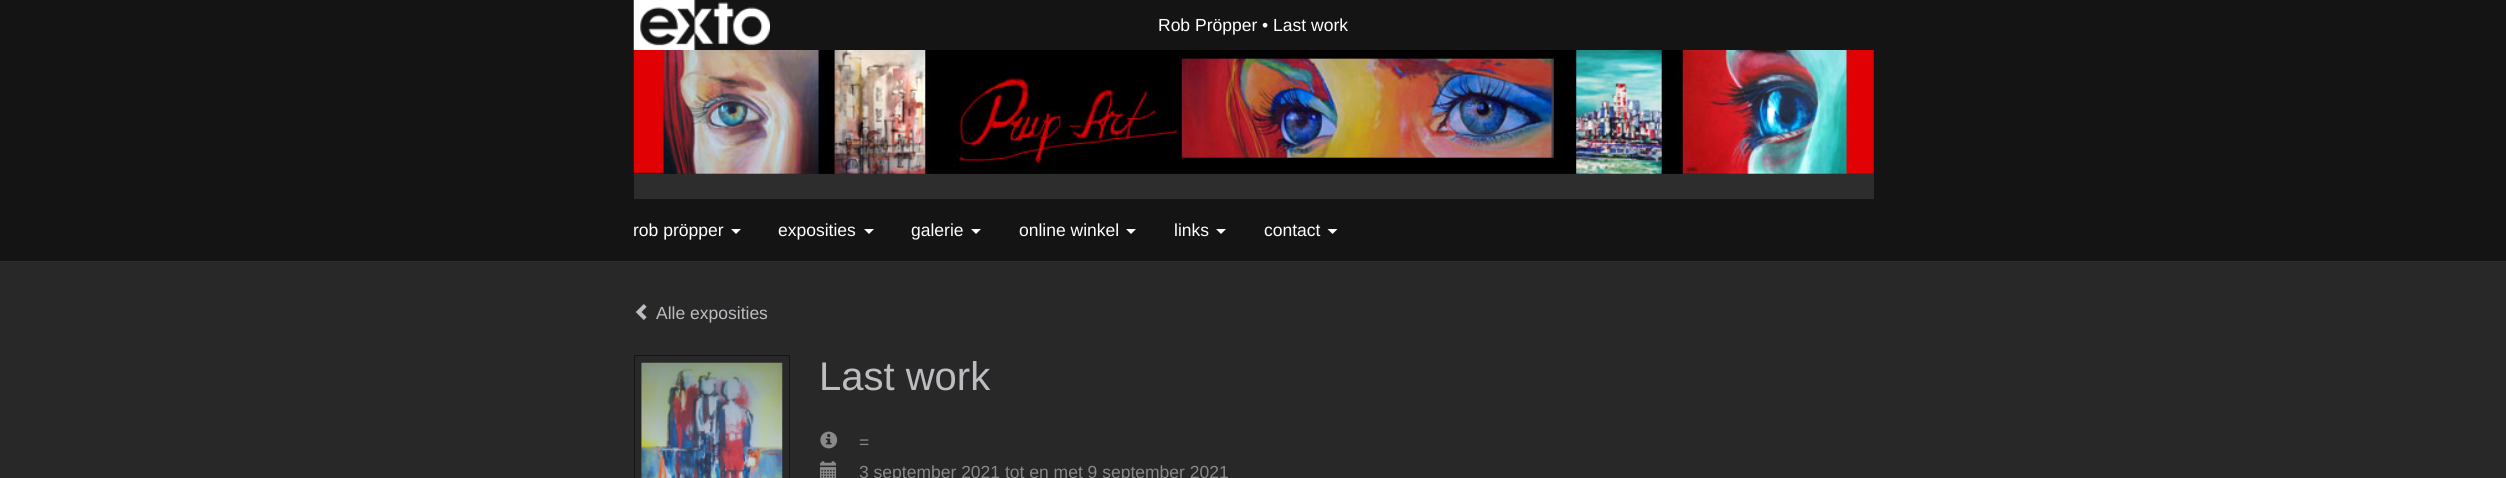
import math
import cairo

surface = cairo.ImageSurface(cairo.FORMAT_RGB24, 2506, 478)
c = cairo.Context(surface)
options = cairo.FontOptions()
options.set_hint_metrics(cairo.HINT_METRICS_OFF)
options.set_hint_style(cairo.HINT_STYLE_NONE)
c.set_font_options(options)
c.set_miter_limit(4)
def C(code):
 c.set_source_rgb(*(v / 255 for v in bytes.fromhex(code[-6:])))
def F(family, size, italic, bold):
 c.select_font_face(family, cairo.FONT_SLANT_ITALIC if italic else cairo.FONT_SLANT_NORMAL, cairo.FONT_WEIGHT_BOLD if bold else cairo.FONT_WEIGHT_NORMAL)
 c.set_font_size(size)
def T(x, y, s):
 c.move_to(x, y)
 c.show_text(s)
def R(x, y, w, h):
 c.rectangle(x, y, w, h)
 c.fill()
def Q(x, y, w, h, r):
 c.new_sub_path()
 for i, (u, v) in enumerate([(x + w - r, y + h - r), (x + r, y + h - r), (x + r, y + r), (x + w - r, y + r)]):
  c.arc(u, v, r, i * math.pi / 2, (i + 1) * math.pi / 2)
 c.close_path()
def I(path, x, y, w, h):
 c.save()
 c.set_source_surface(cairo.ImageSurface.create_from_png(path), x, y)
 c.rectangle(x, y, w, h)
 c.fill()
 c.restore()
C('282828')
c.paint()
C('141414')
R(0,0,2506,261)
I('1.png',633,0,137,50)
F('Liberation Sans',17.5,0,0)
C('ffffff')
T(1158,31,'Rob Pröpper • Last work')
I('2.png',633,50,1241,124)
C('2d2d2d')
R(634,174,1240,25)
R(0,261,2506,1)
C('ffffff')
T(633,236,'rob pröpper')
c.new_path()
c.move_to(731,229)
c.line_to(741,229)
c.line_to(736,234)
c.close_path()
c.fill()
T(778,236,'exposities')
c.new_path()
c.move_to(864,229)
c.line_to(874,229)
c.line_to(869,234)
c.close_path()
c.fill()
T(911,236,'galerie')
c.new_path()
c.move_to(971,229)
c.line_to(981,229)
c.line_to(976,234)
c.close_path()
c.fill()
T(1019,236,'online winkel')
c.new_path()
c.move_to(1126,229)
c.line_to(1136,229)
c.line_to(1131,234)
c.close_path()
c.fill()
T(1174,236,'links')
c.new_path()
c.move_to(1216,229)
c.line_to(1226,229)
c.line_to(1221,234)
c.close_path()
c.fill()
T(1264,236,'contact')
c.new_path()
c.move_to(1327.5,229)
c.line_to(1337.5,229)
c.line_to(1332.5,234)
c.close_path()
c.fill()
I('3.png',635,304,12,16)
C('bcbdc0')
T(656,319,'Alle exposities')
Q(634.5,355.5,155,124,.5)
C('141414')
c.set_line_width(1)
c.stroke()
I('4.png',641,362,142,116)
F('Liberation Sans',40,0,0)
C('bcbdc0')
T(819,390,'Last work')
I('5.png',820,431,18,18)
F('Liberation Sans',17.5,0,0)
C('89898b')
T(859,448,'=')
I('6.png',820,461,17,17)
T(859,478,'3 september 2021 tot en met 9 september 2021')
surface.write_to_png('o.png')
